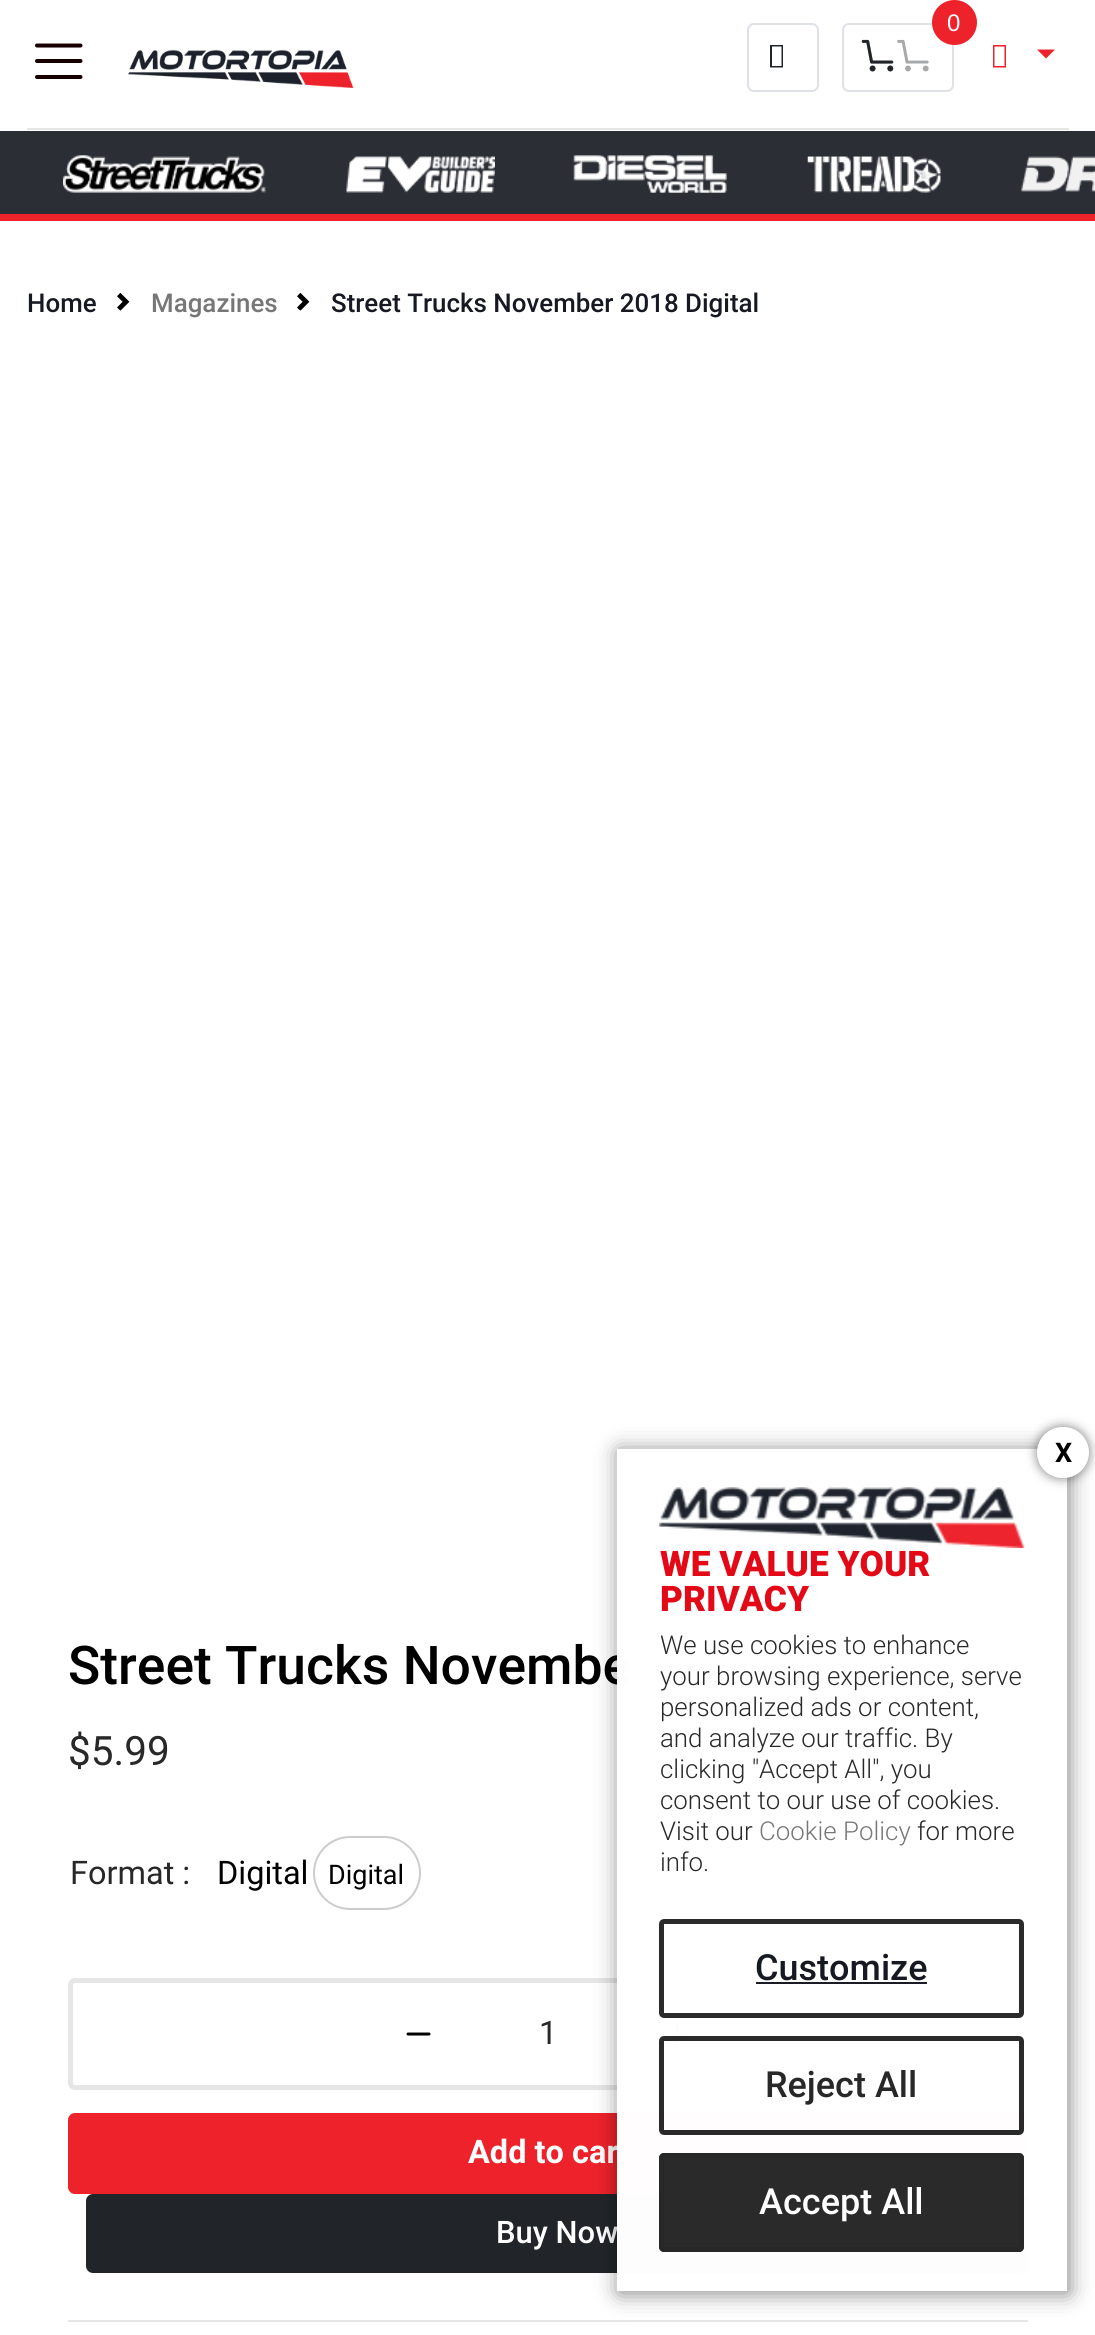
import math
import cairo

surface = cairo.ImageSurface(cairo.FORMAT_RGB24, 1095, 2335)
c = cairo.Context(surface)
options = cairo.FontOptions()
options.set_hint_metrics(cairo.HINT_METRICS_OFF)
options.set_hint_style(cairo.HINT_STYLE_NONE)
c.set_font_options(options)
c.set_miter_limit(4)
def C(code):
 c.set_source_rgb(*(v / 255 for v in bytes.fromhex(code[-6:])))
def F(family, size, italic, bold):
 c.select_font_face(family, cairo.FONT_SLANT_ITALIC if italic else cairo.FONT_SLANT_NORMAL, cairo.FONT_WEIGHT_BOLD if bold else cairo.FONT_WEIGHT_NORMAL)
 c.set_font_size(size)
def T(x, y, s):
 c.move_to(x, y)
 c.show_text(s)
def R(x, y, w, h):
 c.rectangle(x, y, w, h)
 c.fill()
def Q(x, y, w, h, r):
 c.new_sub_path()
 for i, (u, v) in enumerate([(x + w - r, y + h - r), (x + r, y + h - r), (x + r, y + r), (x + w - r, y + r)]):
  c.arc(u, v, r, i * math.pi / 2, (i + 1) * math.pi / 2)
 c.close_path()
def S(x, y, w, h, r, blur, alpha):
 c.push_group_with_content(cairo.CONTENT_ALPHA)
 c.set_operator(cairo.OPERATOR_SOURCE)
 for i in range(15, -16, -2):
  e = blur * i / 6
  if min(w, h) + 2 * e > 0:
   c.set_source_rgba(0, 0, 0, alpha * math.erfc((i - 1) / 8.5) / 2)
   Q(x - e, y - e, w + 2 * e, h + 2 * e, max(0, min(r + e + blur * .6, min(w, h) / 2 + e)))
   c.fill()
 c.mask(c.pop_group())
def I(path, x, y, w, h):
 c.save()
 c.set_source_surface(cairo.ImageSurface.create_from_png(path), x, y)
 c.rectangle(x, y, w, h)
 c.fill()
 c.restore()
C('ffffff')
c.paint()
C('e5e5e5')
R(27,128,1042,2)
Q(748,24,70,67,6)
C('dee2e6')
c.stroke()
C('212529')
c.new_path()
c.move_to(770,67.5)
c.line_to(770,45)
c.line_to(783,45)
c.line_to(783,67.5)
c.close_path()
c.move_to(772,66)
c.line_to(781.5,66)
c.line_to(781.5,46.5)
c.line_to(772,46.5)
c.close_path()
c.fill()
Q(843,24,110,67,6)
C('dee2e6')
c.stroke()
C('ed222b')
c.arc(954.5,22.5,22.5,0,2 * math.pi)
c.fill()
F('Liberation Sans',24,0,0)
C('ffffff')
T(947,31,'0')
I('1.png',861,39,33,33)
I('2.png',861,39,68,33)
C('ed222b')
c.new_path()
c.move_to(993,67.5)
c.line_to(993,45)
c.line_to(1006,45)
c.line_to(1006,67.5)
c.close_path()
c.move_to(994.5,66)
c.line_to(1004.5,66)
c.line_to(1004.5,46.5)
c.line_to(994.5,46.5)
c.close_path()
c.move_to(1037,49.5)
c.line_to(1055,49.5)
c.line_to(1046,58.5)
c.close_path()
c.fill()
c.new_path()
c.move_to(37,45.5)
c.line_to(80.5,45.5)
c.move_to(37,61)
c.line_to(80.5,61)
c.move_to(37,77)
c.line_to(80.5,77)
C('190000')
c.set_line_width(4)
c.set_line_cap(cairo.LINE_CAP_ROUND)
c.stroke()
I('3.png',128,49,226,39)
C('2c2e36')
R(0,131,1095,83)
C('ed222b')
R(0,214,1095,7)
I('4.png',63,155,203,38)
I('5.png',346,156,149,37)
I('6.png',573,155,154,38)
I('7.png',807,156,134,37)
I('8.png',1021,156,74,36)
F('Roboto Medium',25.9,0,0)
C('161921')
T(27,312,'Home')
I('9.png',117,293,13,18)
C('777777')
T(151,312,'Magazines')
I('9.png',297,293,13,18)
C('161921')
T(331,312,'Street Trucks November 2018 Digital')
F('Roboto Medium',53.4,0,0)
C('000000')
T(68,1684,'Street Trucks Novembe')
F('Roboto',40.5,0,0)
C('282828')
T(68,1765,'$5.99')
F('Roboto',32.5,0,0)
T(70,1884,'Format :')
C('000000')
T(217,1884,'Digital')
Q(314,1837,106,72,36)
C('cccccc')
c.set_line_width(2)
c.set_line_cap(cairo.LINE_CAP_BUTT)
c.stroke()
F('Roboto',27,0,0)
C('000000')
T(328,1884,'Digital')
Q(70.5,1980.5,955,107,4.5)
C('e6e6e6')
c.set_line_width(5)
c.stroke()
c.new_path()
c.move_to(408,2034)
c.line_to(429,2034)
C('000000')
c.set_line_width(3)
c.set_line_cap(cairo.LINE_CAP_ROUND)
c.set_line_join(cairo.LINE_JOIN_ROUND)
c.stroke()
F('Roboto',32.5,0,0)
C('282828')
T(539,2044,'1')
c.new_path()
c.move_to(677,2023.5)
c.line_to(677,2044.5)
c.move_to(667,2034)
c.line_to(688,2034)
C('000000')
c.stroke()
C('ed222b')
Q(69,2114,958,79,6)
c.fill_preserve()
c.set_line_width(2)
c.set_line_cap(cairo.LINE_CAP_BUTT)
c.set_line_join(cairo.LINE_JOIN_MITER)
c.stroke()
F('Roboto',32.5,0,1)
C('ffffff')
T(468,2163,'Add to car')
C('212529')
Q(87,2195,940,77,6)
c.fill_preserve()
c.stroke()
F('Roboto Medium',31,0,0)
C('ffffff')
T(496,2243,'Buy Now')
C('e6e6e6')
R(68,2320,960,2)
c.save()
c.set_fill_rule(cairo.FILL_RULE_EVEN_ODD)
c.new_path()
c.move_to(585,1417)
c.line_to(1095,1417)
c.line_to(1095,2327)
c.line_to(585,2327)
c.close_path()
c.move_to(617,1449)
c.line_to(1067,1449)
c.line_to(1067,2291)
c.line_to(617,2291)
c.close_path()
c.clip()
C('000000')
S(619,1451,450,842,0,11,.49)
c.restore()
c.set_source_rgba(1,1,1,0.99)
R(617,1449,450,842)
I('10.png',659,1487,366,61)
C('030303')
S(1037,1427,52,51,25.5,5.5,.5)
C('ffffff')
Q(1037,1427,52,51,25.5)
c.fill()
F('Roboto',27,0,1)
C('000000')
T(1055,1462,'X')
F('Roboto Black',35.25,0,0)
C('e30916')
T(660,1576,'WE VALUE YOUR')
T(660,1611,'PRIVACY')
F('Roboto Light',25.9,0,0)
C('282828')
T(660,1654,'We use cookies to enhance')
T(660,1685,'your browsing experience, serve')
T(660,1716,'personalized ads or content,')
T(660,1747,'and analyze our traffic. By')
T(660,1778,'clicking "Accept All", you')
T(660,1809,'consent to our use of cookies.')
T(660,1840,'Visit our')
C('777777')
T(759,1840,'Cookie Policy')
C('282828')
T(917,1840,'for more')
T(660,1871,'info.')
Q(661.5,1921.5,360,94,2.5)
C('2a2a2a')
c.set_line_width(5)
c.stroke()
F('Roboto Medium',36,0,0)
C('161921')
T(755,1980,'Customize')
C('191c24')
R(756,1982,171,2)
Q(661.5,2038.5,360,94,2.5)
C('2a2a2a')
c.stroke()
C('282828')
T(765,2097,'Reject All')
C('2a2a2a')
Q(659,2153,365,99,5)
c.fill()
Q(661.5,2155.5,360,94,2.5)
c.set_source_rgba(0.157,0.157,0.157,0.99)
c.stroke()
C('ffffff')
T(759,2214,'Accept All')
surface.write_to_png('o.png')
